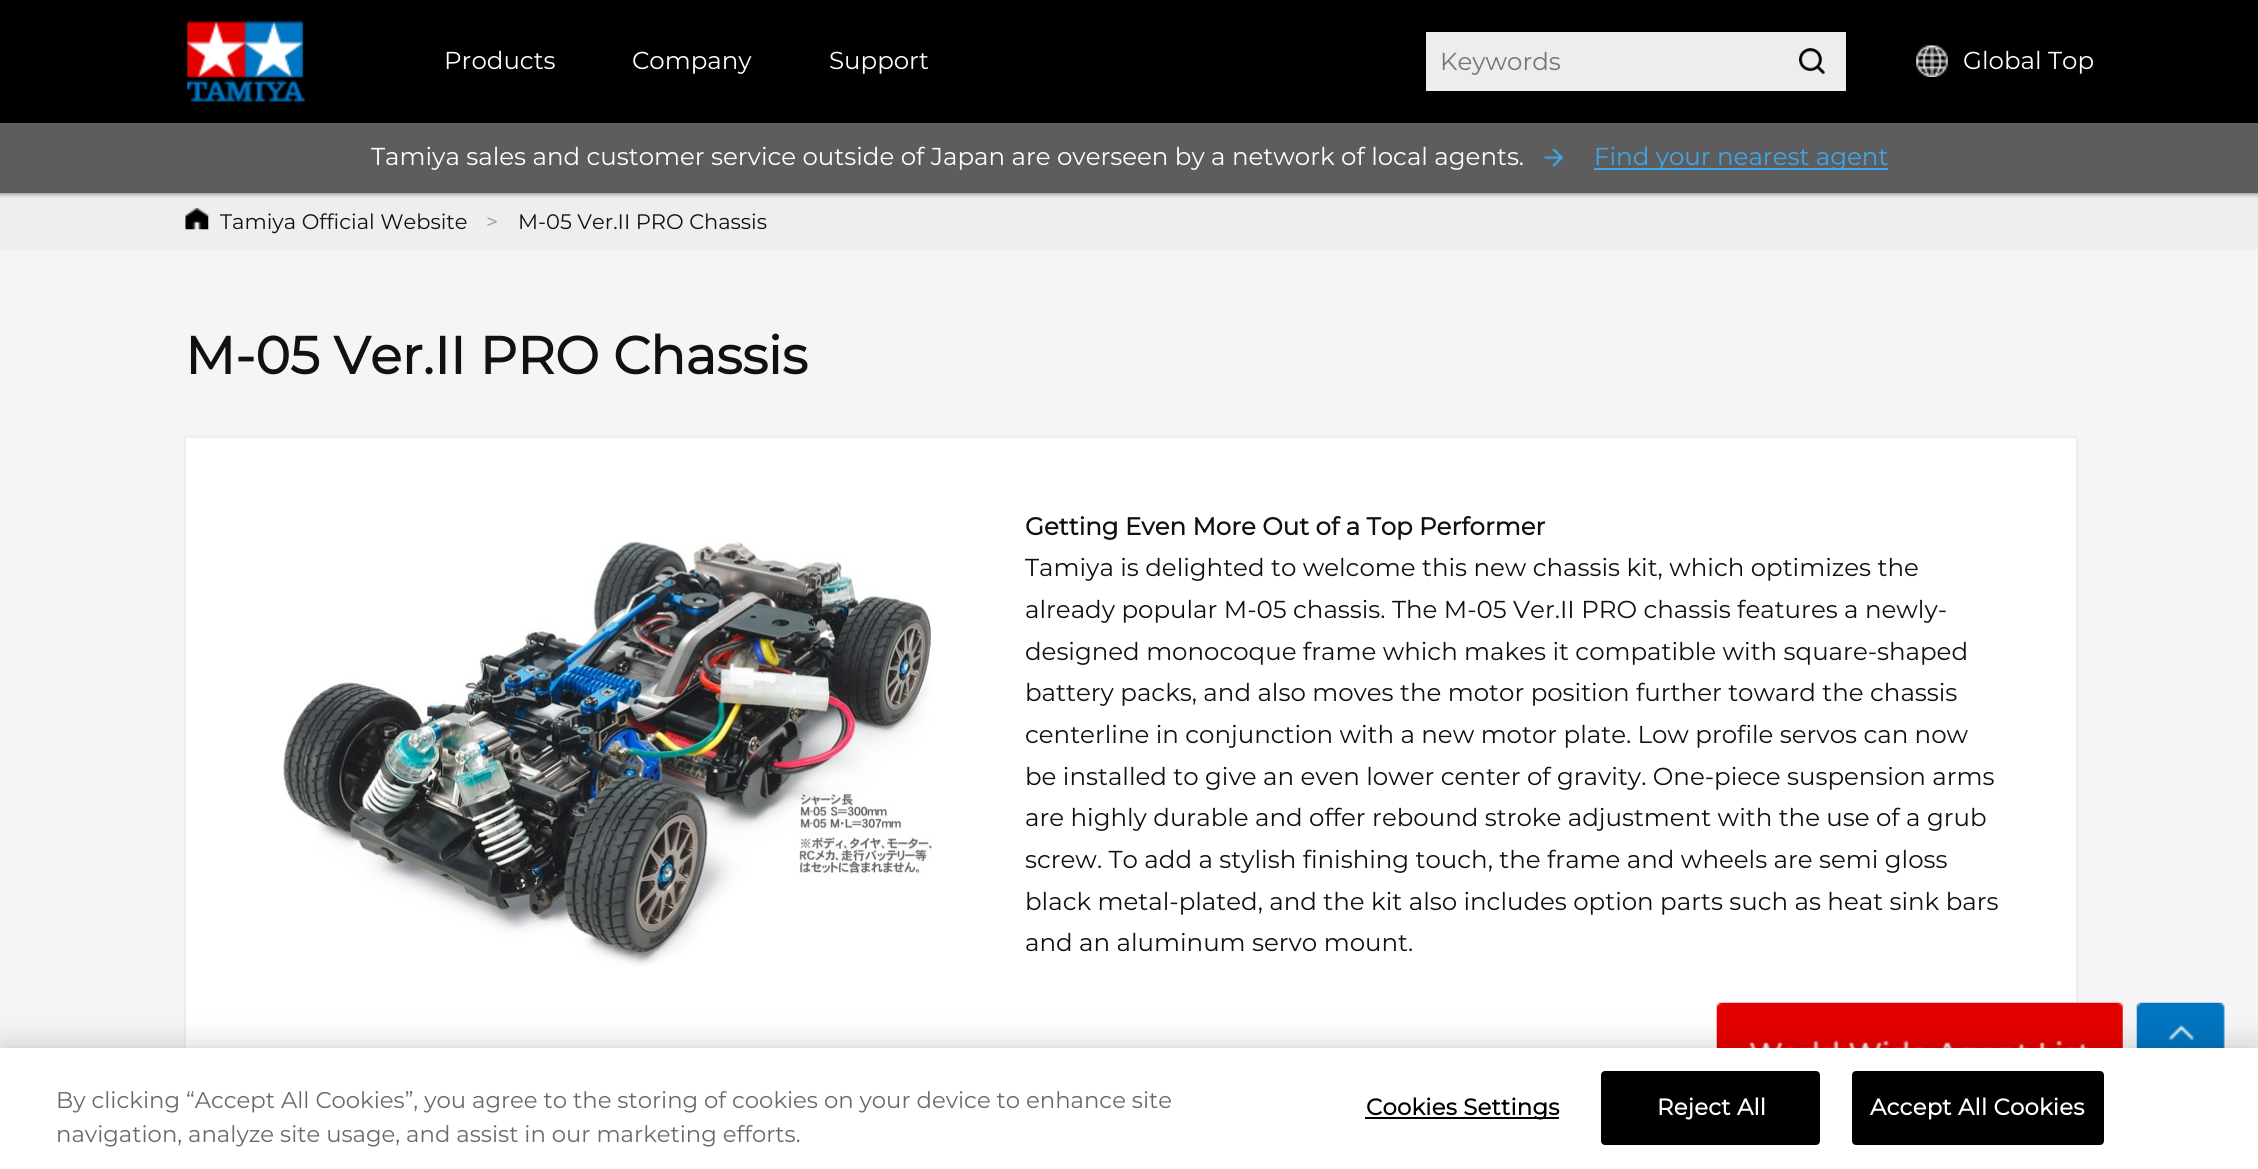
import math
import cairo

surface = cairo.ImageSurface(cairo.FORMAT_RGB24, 2258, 1169)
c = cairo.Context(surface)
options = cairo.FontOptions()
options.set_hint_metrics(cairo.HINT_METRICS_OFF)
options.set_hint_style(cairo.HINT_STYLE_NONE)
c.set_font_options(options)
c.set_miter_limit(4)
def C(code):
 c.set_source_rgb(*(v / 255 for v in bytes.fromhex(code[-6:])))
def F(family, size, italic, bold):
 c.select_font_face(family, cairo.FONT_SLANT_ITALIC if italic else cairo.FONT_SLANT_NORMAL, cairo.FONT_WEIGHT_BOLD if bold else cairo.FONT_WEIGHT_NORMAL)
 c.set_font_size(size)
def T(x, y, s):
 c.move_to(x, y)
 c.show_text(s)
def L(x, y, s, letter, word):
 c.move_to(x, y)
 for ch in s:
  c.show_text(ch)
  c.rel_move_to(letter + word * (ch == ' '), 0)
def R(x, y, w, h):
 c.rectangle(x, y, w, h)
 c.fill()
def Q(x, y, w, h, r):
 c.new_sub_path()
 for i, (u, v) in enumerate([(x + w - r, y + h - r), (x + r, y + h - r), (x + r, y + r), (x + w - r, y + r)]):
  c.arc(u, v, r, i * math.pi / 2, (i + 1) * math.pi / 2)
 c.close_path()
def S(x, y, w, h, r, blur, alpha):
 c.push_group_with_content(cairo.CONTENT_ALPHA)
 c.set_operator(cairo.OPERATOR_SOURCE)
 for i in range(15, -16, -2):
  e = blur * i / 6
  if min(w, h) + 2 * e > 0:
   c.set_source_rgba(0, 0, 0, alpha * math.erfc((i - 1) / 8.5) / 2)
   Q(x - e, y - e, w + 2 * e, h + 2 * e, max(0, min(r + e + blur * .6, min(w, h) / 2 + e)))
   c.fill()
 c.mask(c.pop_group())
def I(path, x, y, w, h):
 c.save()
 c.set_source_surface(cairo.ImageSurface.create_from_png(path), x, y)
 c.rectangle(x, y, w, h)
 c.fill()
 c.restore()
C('f5f5f5')
c.paint()
C('000000')
R(0,0,2258,123)
I('1.png',187,21,118,81)
F('Montserrat Thin',24.5,0,0)
C('ffffff')
T(444,69,'Products')
T(632,69,'Company')
T(829,69,'Support')
C('ededed')
R(1426,32,420,59)
C('757575')
T(1440,70,'Keywords')
I('2.png',1799,48,27,27)
I('3.png',1916,45,32,32)
C('ffffff')
T(1963,69,'Global Top')
C('5d5d5d')
R(0,123,2258,70)
C('ffffff')
T(371,165,'Tamiya sales and customer service outside of Japan are overseen by a network of local agents.')
I('4.png',1544,148,20,19)
C('40a6e8')
R(1594,168,294,2)
T(1594,165,'Find your nearest agent')
C('eeeeee')
R(0,193,2258,57)
I('5.png',0,193,2258,5)
I('6.png',185,208,24,22)
F('Montserrat Thin',21,0,0)
C('111111')
T(220,229,'Tamiya Official Website')
C('999999')
T(486,229,'>')
C('111111')
T(518,229,'M-05 Ver.II PRO Chassis')
F('Montserrat',52.5,0,1)
T(185,374,'M-05 Ver.II PRO Chassis')
C('000000')
S(186,438,1890,631,0,2,.1)
C('ffffff')
R(186,438,1890,610)
I('7.png',283,541,649,425)
F('Montserrat',24.5,0,1)
C('111111')
T(1025,535,'Getting Even More Out of a Top Performer')
F('Montserrat Thin',24.5,0,0)
T(1025,576,'Tamiya is delighted to welcome this new chassis kit, which optimizes the')
T(1025,618,'already popular M-05 chassis. The M-05 Ver.II PRO chassis features a newly-')
T(1025,660,'designed monocoque frame which makes it compatible with square-shaped')
T(1025,701,'battery packs, and also moves the motor position further toward the chassis')
T(1025,743,'centerline in conjunction with a new motor plate. Low profile servos can now')
T(1025,785,'be installed to give an even lower center of gravity. One-piece suspension arms')
T(1025,826,'are highly durable and offer rebound stroke adjustment with the use of a grub')
T(1025,868,'screw. To add a stylish finishing touch, the frame and wheels are semi gloss')
T(1025,910,'black metal-plated, and the kit also includes option parts such as heat sink bars')
T(1025,951,'and an aluminum servo mount.')
I('8.png',1716,1002,407,46)
I('9.png',2136,1002,89,46)
C('000000')
S(0,1048,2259,121,0,16,.2)
C('ffffff')
R(0,1048,2258,121)
F('Montserrat Thin',22.75,0,0)
C('696969')
T(56,1108,'By clicking “Accept All Cookies”, you agree to the storing of cookies on your device to enhance site')
T(56,1142,'navigation, analyze site usage, and assist in our marketing efforts.')
C('000000')
R(1365,1117,194,2)
F('Montserrat',22.75,0,1)
L(1366,1115,'Cookies Settings',.25,0)
Q(1602,1072,217,72,3)
c.fill_preserve()
c.stroke()
C('ffffff')
L(1657,1115,'Reject All',.25,0)
C('000000')
Q(1853,1072,250,72,3)
c.fill_preserve()
c.stroke()
C('ffffff')
L(1870,1115,'Accept All Cookies',.25,0)
surface.write_to_png('o.png')
